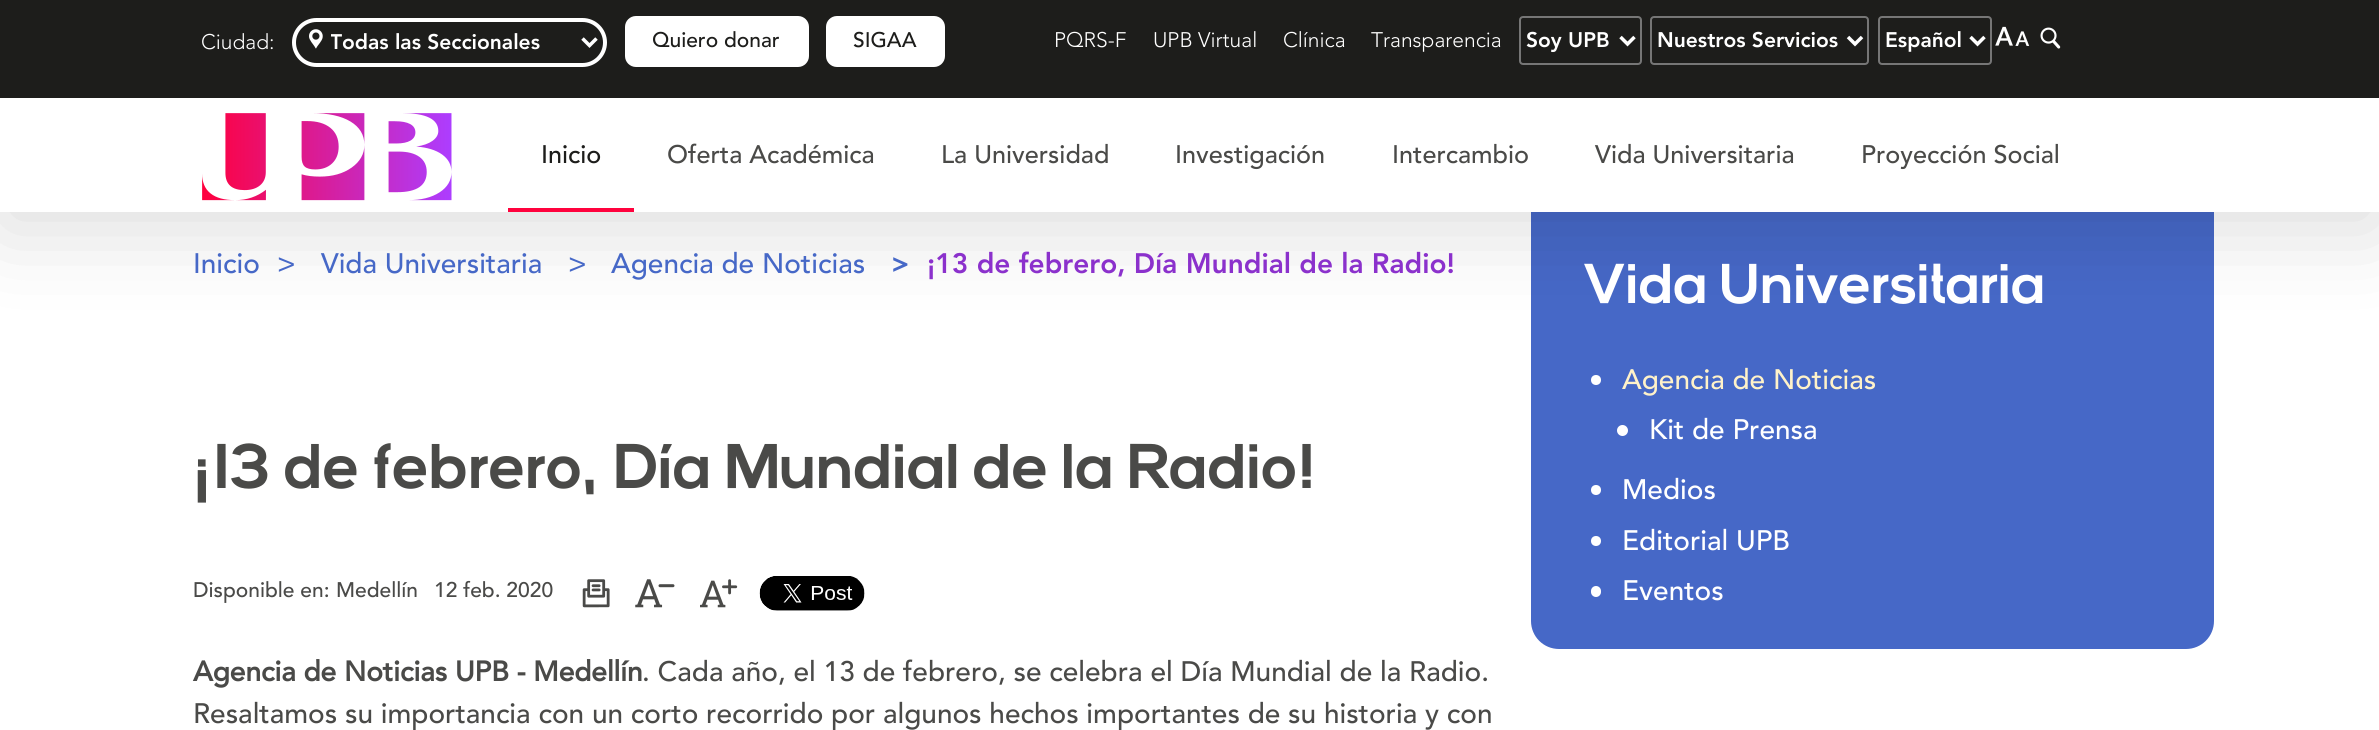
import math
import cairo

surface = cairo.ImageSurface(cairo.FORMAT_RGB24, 2379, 730)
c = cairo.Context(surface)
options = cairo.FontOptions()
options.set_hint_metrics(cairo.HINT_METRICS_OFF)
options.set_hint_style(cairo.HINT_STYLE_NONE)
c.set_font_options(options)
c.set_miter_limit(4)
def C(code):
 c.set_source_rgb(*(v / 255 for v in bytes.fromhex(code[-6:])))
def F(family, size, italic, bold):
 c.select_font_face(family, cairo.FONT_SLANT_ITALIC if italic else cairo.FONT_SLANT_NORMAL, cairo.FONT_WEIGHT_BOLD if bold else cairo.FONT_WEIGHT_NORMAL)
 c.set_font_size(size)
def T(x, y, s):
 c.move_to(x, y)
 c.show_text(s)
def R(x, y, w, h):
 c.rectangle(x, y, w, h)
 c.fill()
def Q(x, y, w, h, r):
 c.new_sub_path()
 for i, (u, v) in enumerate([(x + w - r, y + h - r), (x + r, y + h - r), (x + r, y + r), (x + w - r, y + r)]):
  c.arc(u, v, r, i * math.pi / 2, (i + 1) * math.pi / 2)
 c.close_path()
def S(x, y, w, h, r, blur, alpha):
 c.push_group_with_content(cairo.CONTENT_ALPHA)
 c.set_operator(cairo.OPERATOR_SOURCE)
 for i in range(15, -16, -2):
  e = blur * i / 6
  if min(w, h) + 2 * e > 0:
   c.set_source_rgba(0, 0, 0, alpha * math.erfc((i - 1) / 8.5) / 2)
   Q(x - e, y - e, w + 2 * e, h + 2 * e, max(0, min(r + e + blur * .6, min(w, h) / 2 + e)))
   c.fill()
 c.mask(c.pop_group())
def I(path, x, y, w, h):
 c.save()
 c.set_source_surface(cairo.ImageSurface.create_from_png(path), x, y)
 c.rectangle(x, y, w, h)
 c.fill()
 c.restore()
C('ffffff')
c.paint()
C('4668c7')
c.new_path()
c.move_to(1531,212)
c.line_to(2214,212)
c.line_to(2214,621)
c.curve_to(2214,636.5,2201.5,649,2186,649)
c.line_to(1559,649)
c.curve_to(1543.5,649,1531,636.5,1531,621)
c.close_path()
c.fill()
C('000000')
S(0,18,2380,211,0,44,.14)
C('ffffff')
R(0,98,2379,114)
C('1d1d1b')
R(0,0,2379,98)
Q(294,20,311,45,22.5)
C('ffffff')
c.set_line_width(4)
c.stroke()
I('1.png',309,29,14,20)
F('Avenir Light',21,0,0)
T(201,49,'Ciudad:')
c.new_path()
c.move_to(582.5,38.5)
c.line_to(589.5,45.5)
c.line_to(596.5,38.5)
c.set_line_width(3.5)
c.stroke()
c.save()
c.rectangle(331,26,217,32)
c.clip()
F('Avenir Black',21,0,0)
T(330,49,'Todas las Seccionales')
c.restore()
Q(625,16,184,51,11)
c.fill()
F('Avenir Medium',21,0,0)
C('1d1d1b')
T(652,47,'Quiero donar')
C('ffffff')
Q(826,16,119,51,11)
c.fill()
C('1d1d1b')
T(853,47,'SIGAA')
F('Avenir Light',21,0,0)
C('ffffff')
T(1054,47,'PQRS-F')
T(1153,47,'UPB Virtual')
T(1283,47,'Clínica')
T(1371,47,'Transparencia')
Q(1520,17,121,47,3)
C('767676')
c.set_line_width(2)
c.stroke()
c.new_path()
c.move_to(1620.5,37)
c.line_to(1627.5,44)
c.line_to(1634.5,37)
C('ffffff')
c.set_line_width(3.5)
c.stroke()
F('Avenir Black',21,0,0)
T(1526,47,'Soy UPB')
Q(1651,17,217,47,3)
C('767676')
c.set_line_width(2)
c.stroke()
c.new_path()
c.move_to(1848,37)
c.line_to(1855,44)
c.line_to(1862,37)
C('ffffff')
c.set_line_width(3.5)
c.stroke()
T(1657,47,'Nuestros Servicios')
Q(1879,17,112,47,3)
C('767676')
c.set_line_width(2)
c.stroke()
c.new_path()
c.move_to(1970.5,37)
c.line_to(1977.5,44)
c.line_to(1984.5,37)
C('ffffff')
c.set_line_width(3.5)
c.stroke()
T(1885,47,'Español')
I('2.png',1995,26,18,20)
I('3.png',2015,31,15,15)
I('4.png',2040,27,21,22)
I('5.png',202,113,250,88)
C('ff023d')
R(508,208,126,4)
F('Avenir Medium',25.25,0,0)
C('1d1d1b')
T(541,163,'Inicio')
C('4a4a48')
T(667,163,'Oferta Académica')
T(941,163,'La Universidad')
T(1175,163,'Investigación')
T(1392,163,'Intercambio')
T(1595,163,'Vida Universitaria')
T(1861,163,'Proyección Social')
F('Avenir Medium',28,0,0)
C('4668c7')
T(193,273,'Inicio')
T(277,273,'>')
T(321,273,'Vida Universitaria')
T(568,273,'>')
T(611,273,'Agencia de Noticias')
F('Avenir Black',28,0,0)
T(891,273,'>')
C('8b31cc')
T(927,273,'¡13 de febrero, Día Mundial de la Radio!')
F('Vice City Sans',56,0,1)
C('ffffff')
T(1584,303,'Vida Universitaria')
c.new_path()
c.arc(1596,380,5,0,2 * math.pi)
c.fill()
F('Avenir Medium',28,0,0)
C('fff2c9')
T(1622,389,'Agencia de Noticias')
C('ffffff')
c.new_path()
c.arc(1622.5,430.5,5.5,0,2 * math.pi)
c.fill()
T(1649,439,'Kit de Prensa')
c.new_path()
c.arc(1596,490,5,0,2 * math.pi)
c.fill()
T(1622,499,'Medios')
c.new_path()
c.arc(1596,541,5,0,2 * math.pi)
c.fill()
T(1622,550,'Editorial UPB')
Q(1591,586,10,11,5)
c.fill()
T(1622,600,'Eventos')
F('Vice City Sans',63,0,1)
C('4a4a48')
T(193,488,'¡13 de febrero, Día Mundial de la Radio!')
F('Avenir Medium',21,0,0)
T(193,597,'Disponible en:')
T(336,597,'Medellín')
T(434,597,'12 feb. 2020')
I('6.png',582,579,28,29)
I('7.png',635,579,40,29)
I('8.png',700,579,38,29)
I('9.png',759,576,106,35)
F('Avenir',28,0,1)
T(193,681,'Agencia de Noticias UPB - Medellín')
F('Avenir Medium',28,0,0)
T(642,681,'. Cada año, el 13 de febrero, se celebra el Día Mundial de la Radio.')
T(193,723,'Resaltamos su importancia con un corto recorrido por algunos hechos importantes de su historia y con')
surface.write_to_png('o.png')
